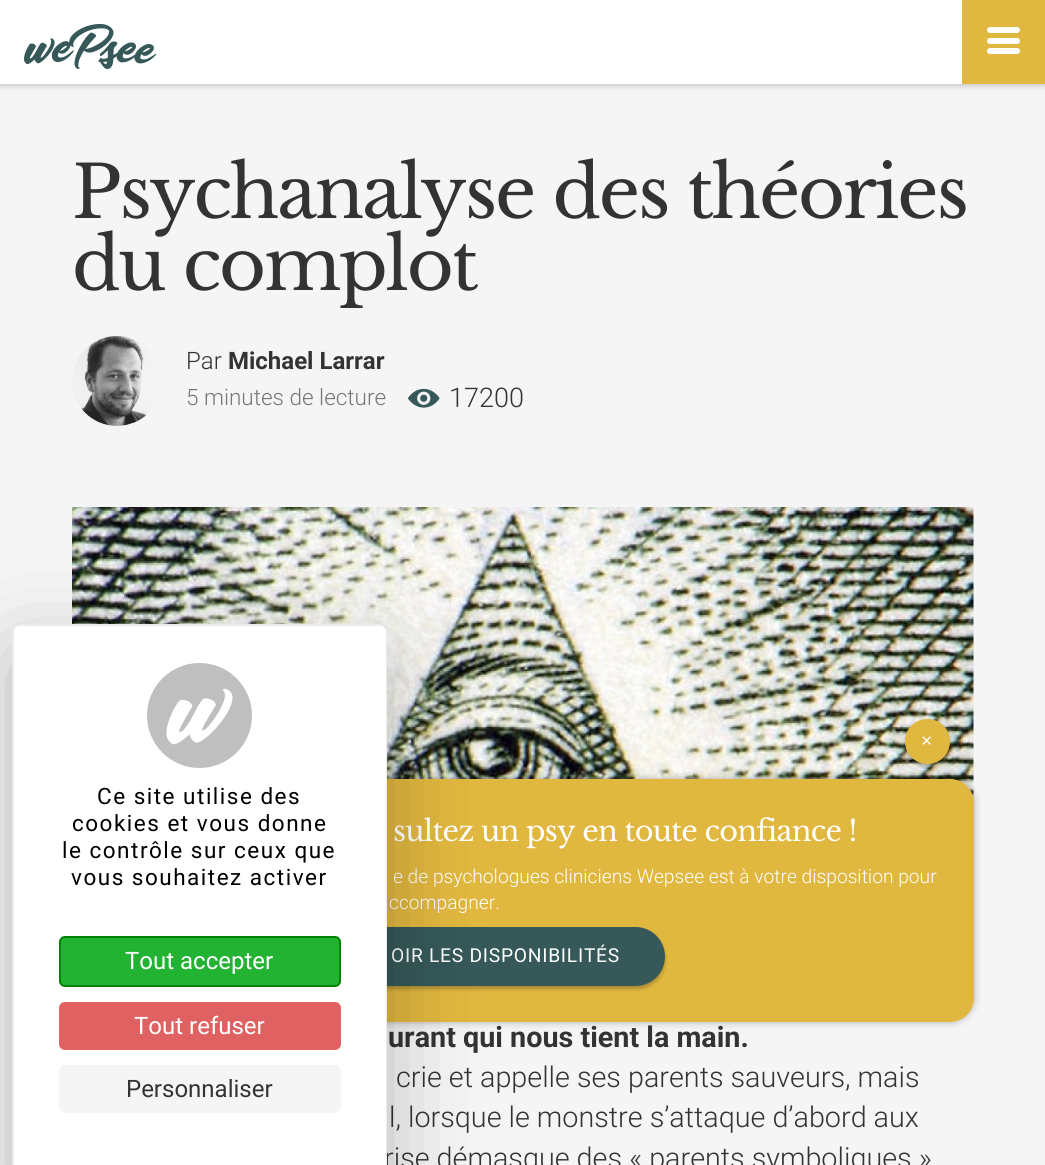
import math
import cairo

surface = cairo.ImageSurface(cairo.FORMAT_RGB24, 1045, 1165)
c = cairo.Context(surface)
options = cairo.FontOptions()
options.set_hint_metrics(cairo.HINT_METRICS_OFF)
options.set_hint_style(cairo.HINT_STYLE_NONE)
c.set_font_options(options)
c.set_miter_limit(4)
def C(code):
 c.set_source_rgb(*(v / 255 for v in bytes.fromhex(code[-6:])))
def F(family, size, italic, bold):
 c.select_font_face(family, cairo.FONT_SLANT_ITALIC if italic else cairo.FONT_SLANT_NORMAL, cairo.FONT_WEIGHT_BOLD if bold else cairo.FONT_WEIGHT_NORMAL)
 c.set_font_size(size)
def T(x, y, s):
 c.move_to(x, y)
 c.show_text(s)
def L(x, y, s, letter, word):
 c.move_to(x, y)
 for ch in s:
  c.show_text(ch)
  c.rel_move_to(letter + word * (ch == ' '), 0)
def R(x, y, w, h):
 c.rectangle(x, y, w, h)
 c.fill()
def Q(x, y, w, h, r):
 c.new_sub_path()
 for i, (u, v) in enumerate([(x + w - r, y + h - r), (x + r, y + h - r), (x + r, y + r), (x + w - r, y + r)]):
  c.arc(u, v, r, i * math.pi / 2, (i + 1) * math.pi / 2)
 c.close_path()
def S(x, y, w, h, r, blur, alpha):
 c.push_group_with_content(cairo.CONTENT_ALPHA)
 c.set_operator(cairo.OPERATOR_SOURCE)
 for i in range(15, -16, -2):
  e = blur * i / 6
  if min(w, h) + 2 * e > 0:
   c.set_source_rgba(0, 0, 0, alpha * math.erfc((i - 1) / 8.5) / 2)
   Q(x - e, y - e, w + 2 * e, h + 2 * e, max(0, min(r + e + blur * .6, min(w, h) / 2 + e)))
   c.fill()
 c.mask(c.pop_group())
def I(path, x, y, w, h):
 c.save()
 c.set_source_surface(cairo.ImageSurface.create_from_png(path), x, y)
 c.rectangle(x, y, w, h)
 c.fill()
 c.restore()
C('ffffff')
c.paint()
C('f5f5f5')
R(0,84,1045,1081)
c.save()
c.rectangle(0,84,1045,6)
c.clip()
C('000000')
S(0,0,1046,84,0,4,.3)
c.restore()
I('1.png',24,24,132,45)
C('e1b83f')
R(962,0,83,84)
C('ffffff')
Q(987,27,33,6,3)
c.fill()
Q(987,38,33,6,3)
c.fill()
Q(987,48,33,6,3)
c.fill()
F('Libre Baskerville',72,0,0)
C('333333')
L(72,218,'Psychanalyse des théories',-2.25,0)
L(72,290,'du complot',-2.25,0)
I('2.png',72,336,79,90)
F('Roboto Light',24,0,0)
T(186,369,'Par')
F('Roboto',24,0,1)
T(228,369,'Michael Larrar')
F('Roboto Light',22.5,0,0)
C('777777')
T(186,405,'5 minutes de lecture')
I('3.png',408,388,32,20)
F('Roboto Light',27,0,0)
C('333333')
T(449,407,'17200')
I('4.png',72,507,902,296)
C('000000')
S(72,779,902,243,24,4,.3)
C('e1b83f')
Q(72,779,902,243,24)
c.fill()
C('000000')
S(905,722,45,45,22.5,2,.25)
C('e1b83f')
c.arc(927.5,741.5,22.5,0,2 * math.pi)
c.fill()
F('Liberation Sans',19.2,0,0)
C('ffffff')
L(921,747,'×',.75,0)
F('Libre Baskerville',28.75,0,0)
L(393,841,'sultez un psy en toute confiance !',-.75,0)
F('Roboto Light',19.2,0,0)
T(393,883,'e de psychologues cliniciens Wepsee est à votre disposition pour')
T(389,909,'ccompagner.')
C('000000')
S(333,930,332,59,29.5,2,.25)
C('365858')
Q(333,927,332,59,29.5)
c.fill()
F('Roboto',19.2,0,0)
C('ffffff')
L(391,962,'OIR LES DISPONIBILITÉS',.75,0)
F('Roboto',28.75,0,1)
C('333333')
T(388,1047,'urant qui nous tient la main.')
F('Roboto Light',28.75,0,0)
T(396,1087,'crie et appelle ses parents sauveurs, mais')
T(389,1127,'l, lorsque le monstre s’attaque d’abord aux')
T(384,1168,'rise démasque des « parents symboliques »')
C('000000')
S(12,654,375,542,8,45,.25)
C('ffffff')
c.new_path()
c.move_to(20,624)
c.line_to(379,624)
c.curve_to(383.5,624,387,627.5,387,632)
c.line_to(387,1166)
c.line_to(12,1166)
c.line_to(12,632)
c.curve_to(12,627.5,15.5,624,20,624)
c.close_path()
c.fill()
c.set_source_rgba(0,0,0,0.08)
c.set_fill_rule(cairo.FILL_RULE_EVEN_ODD)
c.new_path()
c.move_to(20,624)
c.line_to(380,624)
c.curve_to(384,624,387,627,387,632)
c.line_to(387,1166)
c.line_to(12,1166)
c.line_to(12,632)
c.curve_to(12,627,15,624,20,624)
c.close_path()
c.move_to(20,626)
c.line_to(380,626)
c.curve_to(383,626,386,628,386,632)
c.line_to(386,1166)
c.line_to(14,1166)
c.line_to(14,632)
c.curve_to(14,628,16,626,20,626)
c.close_path()
c.fill()
I('5.png',147,663,105,105)
F('Roboto',22.5,0,0)
C('000000')
L(97,804,'Ce site utilise des',1.5,0)
L(72,831,'cookies et vous donne',1.5,0)
L(62,858,'le contrôle sur ceux que',1.5,0)
L(71,885,'vous souhaitez activer',1.5,0)
C('22b333')
Q(60,937,280,49,5)
c.fill_preserve()
C('008300')
c.stroke()
F('Roboto',24,0,0)
C('ffffff')
T(125,969,'Tout accepter')
C('e06161')
Q(59,1002,282,48,6)
c.fill()
C('ffffff')
T(134,1034,'Tout refuser')
C('f5f5f5')
Q(59,1065,282,48,6)
c.fill()
C('333333')
T(126,1097,'Personnaliser')
surface.write_to_png('o.png')
